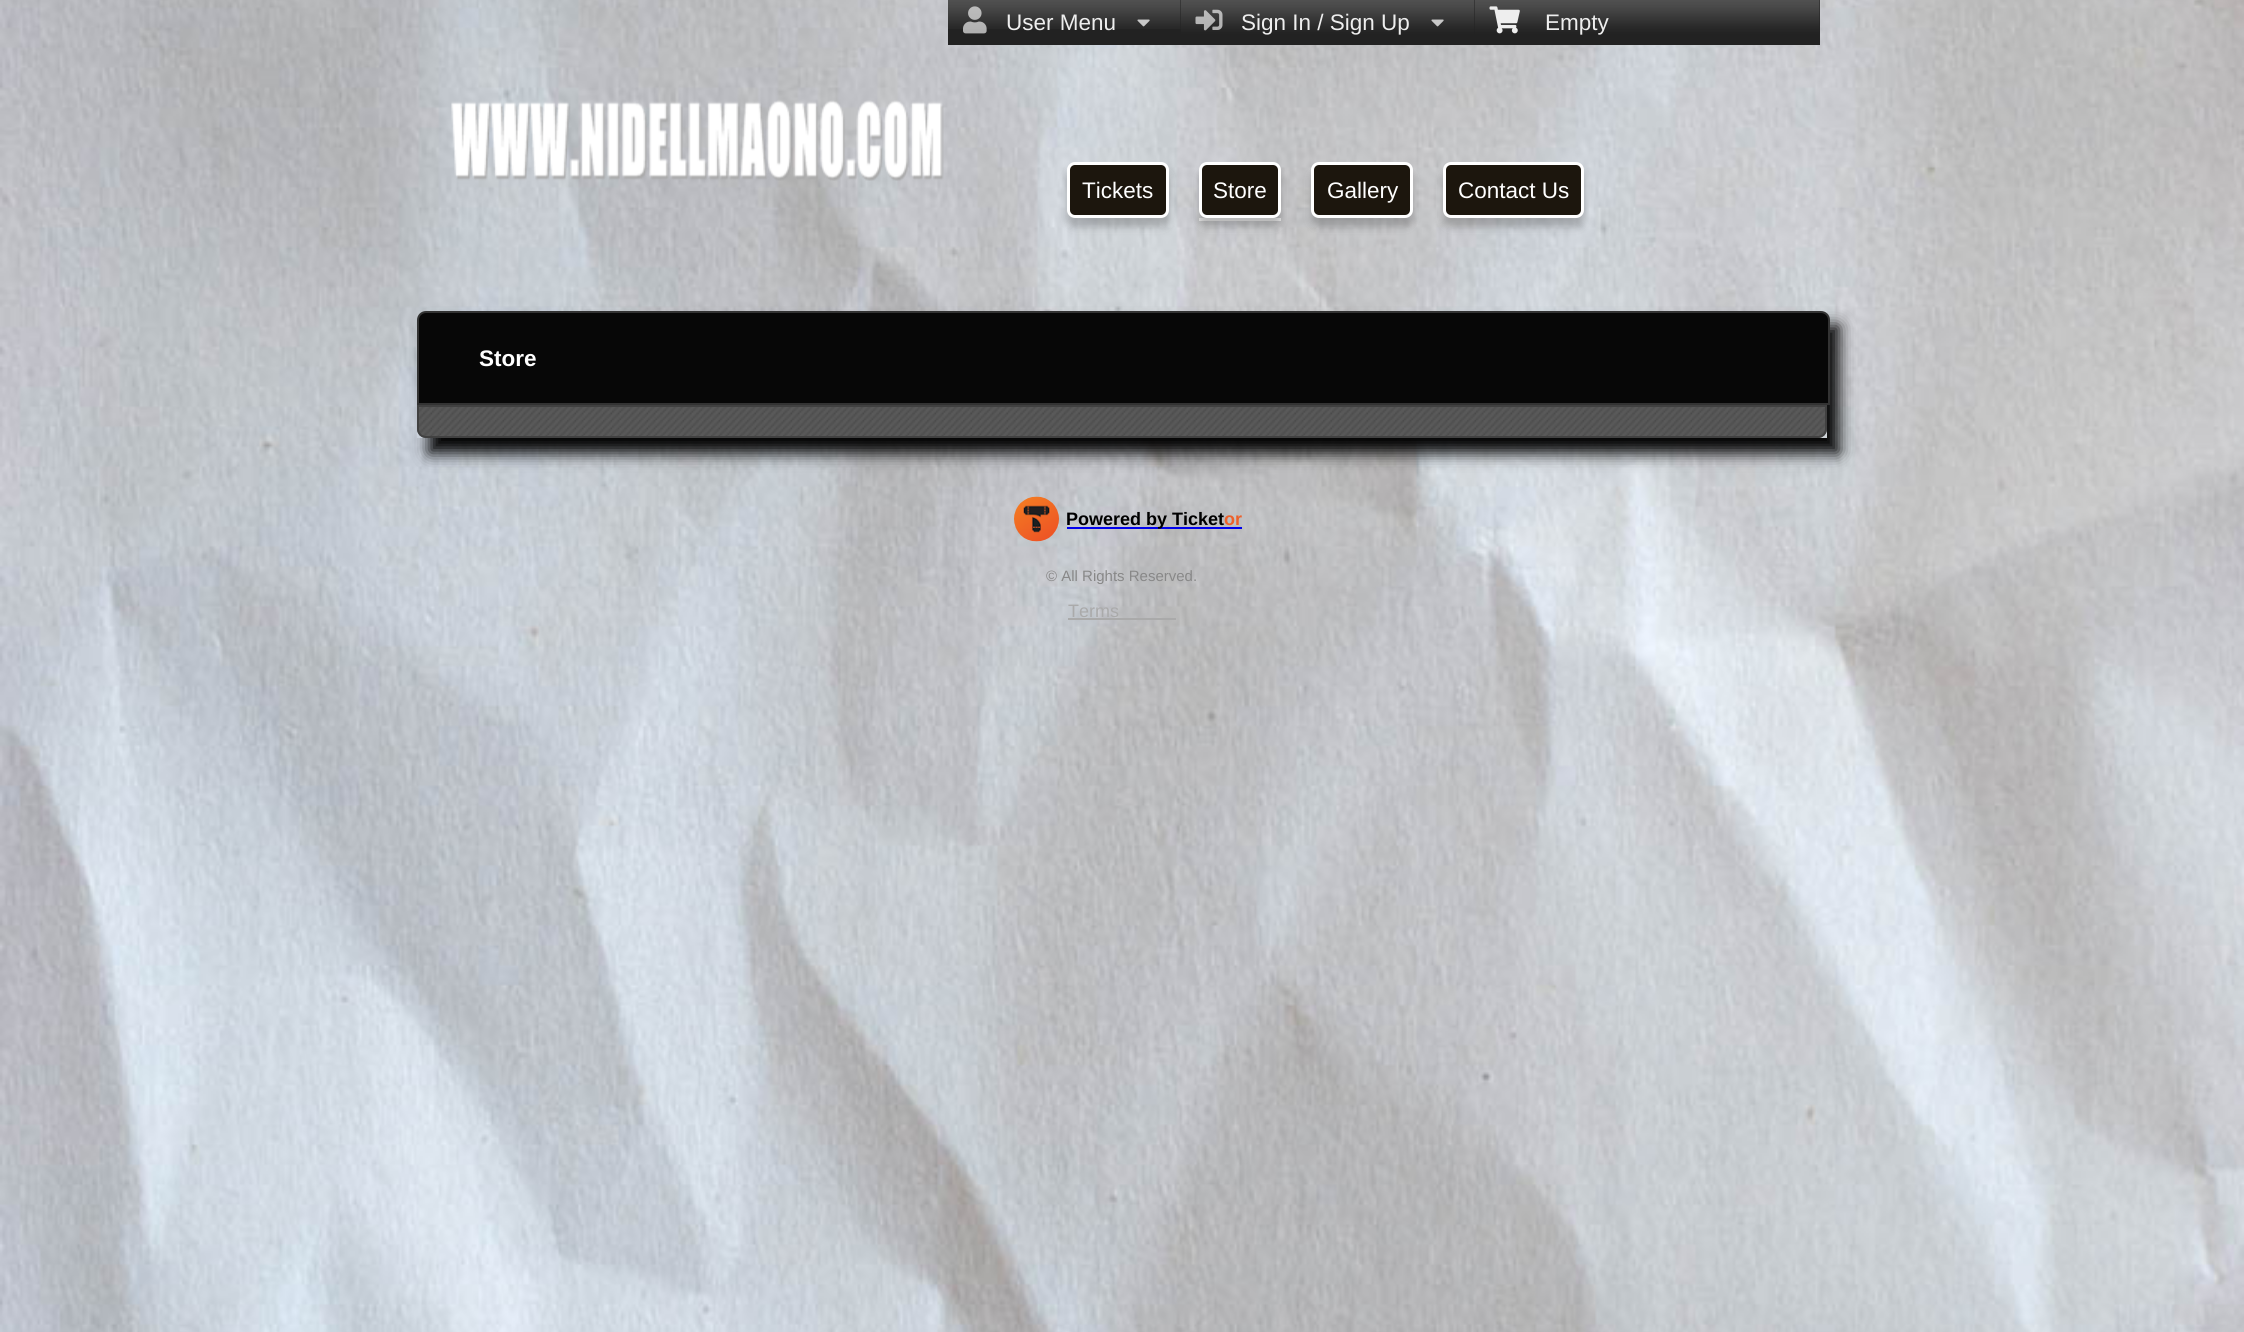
import math
import cairo

surface = cairo.ImageSurface(cairo.FORMAT_RGB24, 2244, 1332)
c = cairo.Context(surface)
options = cairo.FontOptions()
options.set_hint_metrics(cairo.HINT_METRICS_OFF)
options.set_hint_style(cairo.HINT_STYLE_NONE)
c.set_font_options(options)
c.set_miter_limit(4)
def C(code):
 c.set_source_rgb(*(v / 255 for v in bytes.fromhex(code[-6:])))
def F(family, size, italic, bold):
 c.select_font_face(family, cairo.FONT_SLANT_ITALIC if italic else cairo.FONT_SLANT_NORMAL, cairo.FONT_WEIGHT_BOLD if bold else cairo.FONT_WEIGHT_NORMAL)
 c.set_font_size(size)
def T(x, y, s):
 c.move_to(x, y)
 c.show_text(s)
def R(x, y, w, h):
 c.rectangle(x, y, w, h)
 c.fill()
def Q(x, y, w, h, r):
 c.new_sub_path()
 for i, (u, v) in enumerate([(x + w - r, y + h - r), (x + r, y + h - r), (x + r, y + r), (x + w - r, y + r)]):
  c.arc(u, v, r, i * math.pi / 2, (i + 1) * math.pi / 2)
 c.close_path()
def S(x, y, w, h, r, blur, alpha):
 c.push_group_with_content(cairo.CONTENT_ALPHA)
 c.set_operator(cairo.OPERATOR_SOURCE)
 for i in range(15, -16, -2):
  e = blur * i / 6
  if min(w, h) + 2 * e > 0:
   c.set_source_rgba(0, 0, 0, alpha * math.erfc((i - 1) / 8.5) / 2)
   Q(x - e, y - e, w + 2 * e, h + 2 * e, max(0, min(r + e + blur * .6, min(w, h) / 2 + e)))
   c.fill()
 c.mask(c.pop_group())
def I(path, x, y, w, h):
 c.save()
 c.set_source_surface(cairo.ImageSurface.create_from_png(path), x, y)
 c.rectangle(x, y, w, h)
 c.fill()
 c.restore()
C('ffffff')
c.paint()
I('1.png',0,0,2244,1332)
C('222222')
R(948,0,233,45)
I('2.png',948,0,233,29)
I('3.png',963,6,24,28)
F('Liberation Sans',22.5,0,0)
C('eeeeee')
T(1006,30,'User Menu')
I('4.png',1137,19,13,8)
C('222222')
R(1474,0,1,45)
I('5.png',1181,0,294,45)
I('6.png',1195,9,28,22)
C('eeeeee')
T(1241,30,'Sign In / Sign Up')
I('4.png',1431,19,13,8)
C('222222')
R(1819,0,1,45)
I('7.png',1475,0,345,45)
I('8.png',1489,6,31,28)
C('eeeeee')
T(1545,30,'Empty')
I('9.png',451,100,493,81)
C('323232')
S(1067,171,102,56,8,4,.28)
C('1c160d')
Q(1068.5,163.5,99,53,6.5)
c.fill_preserve()
C('ffffff')
c.set_line_width(3)
c.stroke()
T(1082,198,'Tickets')
C('eeeeee')
R(1199,218,82,3)
C('323232')
S(1199,171,82,56,8,4,.28)
C('1c160d')
Q(1200.5,163.5,79,53,6.5)
c.fill_preserve()
C('ffffff')
c.stroke()
T(1213,198,'Store')
C('323232')
S(1311,171,102,56,8,4,.28)
C('1c160d')
Q(1312.5,163.5,99,53,6.5)
c.fill_preserve()
C('ffffff')
c.stroke()
T(1327,198,'Gallery')
C('323232')
S(1443,171,141,56,8,4,.28)
C('1c160d')
Q(1444.5,163.5,138,53,6.5)
c.fill_preserve()
C('ffffff')
c.stroke()
T(1458,198,'Contact Us')
c.save()
c.set_fill_rule(cairo.FILL_RULE_EVEN_ODD)
c.new_path()
c.move_to(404,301)
c.line_to(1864,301)
c.line_to(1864,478)
c.line_to(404,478)
c.close_path()
c.move_to(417,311)
c.line_to(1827,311)
c.line_to(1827,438)
c.line_to(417,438)
c.close_path()
c.clip()
C('000000')
S(429,326,1410,127,0,8,1)
c.restore()
C('070707')
c.new_path()
c.move_to(426,312)
c.line_to(1821,312)
c.curve_to(1825.5,312,1829,315.5,1829,320)
c.line_to(1829,404)
c.line_to(418,404)
c.line_to(418,320)
c.curve_to(418,315.5,421.5,312,426,312)
c.close_path()
c.fill_preserve()
C('333333')
c.set_line_width(2)
c.stroke()
F('Liberation Sans',22.5,0,1)
C('ffffff')
T(479,366,'Store')
I('10.png',417,407,1410,31)
c.new_path()
c.move_to(418,406)
c.line_to(1826,406)
c.line_to(1826,429)
c.curve_to(1826,433.5,1822.5,437,1818,437)
c.line_to(426,437)
c.curve_to(421.5,437,418,433.5,418,429)
c.close_path()
C('414141')
c.stroke()
I('11.png',1014,496,45,46)
C('0000ee')
R(1067,527,175,2)
F('Liberation Sans',18,0,1)
C('000000')
T(1066,525,'Powered by Ticket')
C('ed612b')
T(1224,525,'or')
F('Liberation Sans',15,0,0)
C('888888')
T(1046,581,'© All Rights Reserved.')
F('Liberation Sans',18,0,0)
C('aaaaaa')
T(1068,617,'Terms')
R(1068,618,108,2)
surface.write_to_png('o.png')
